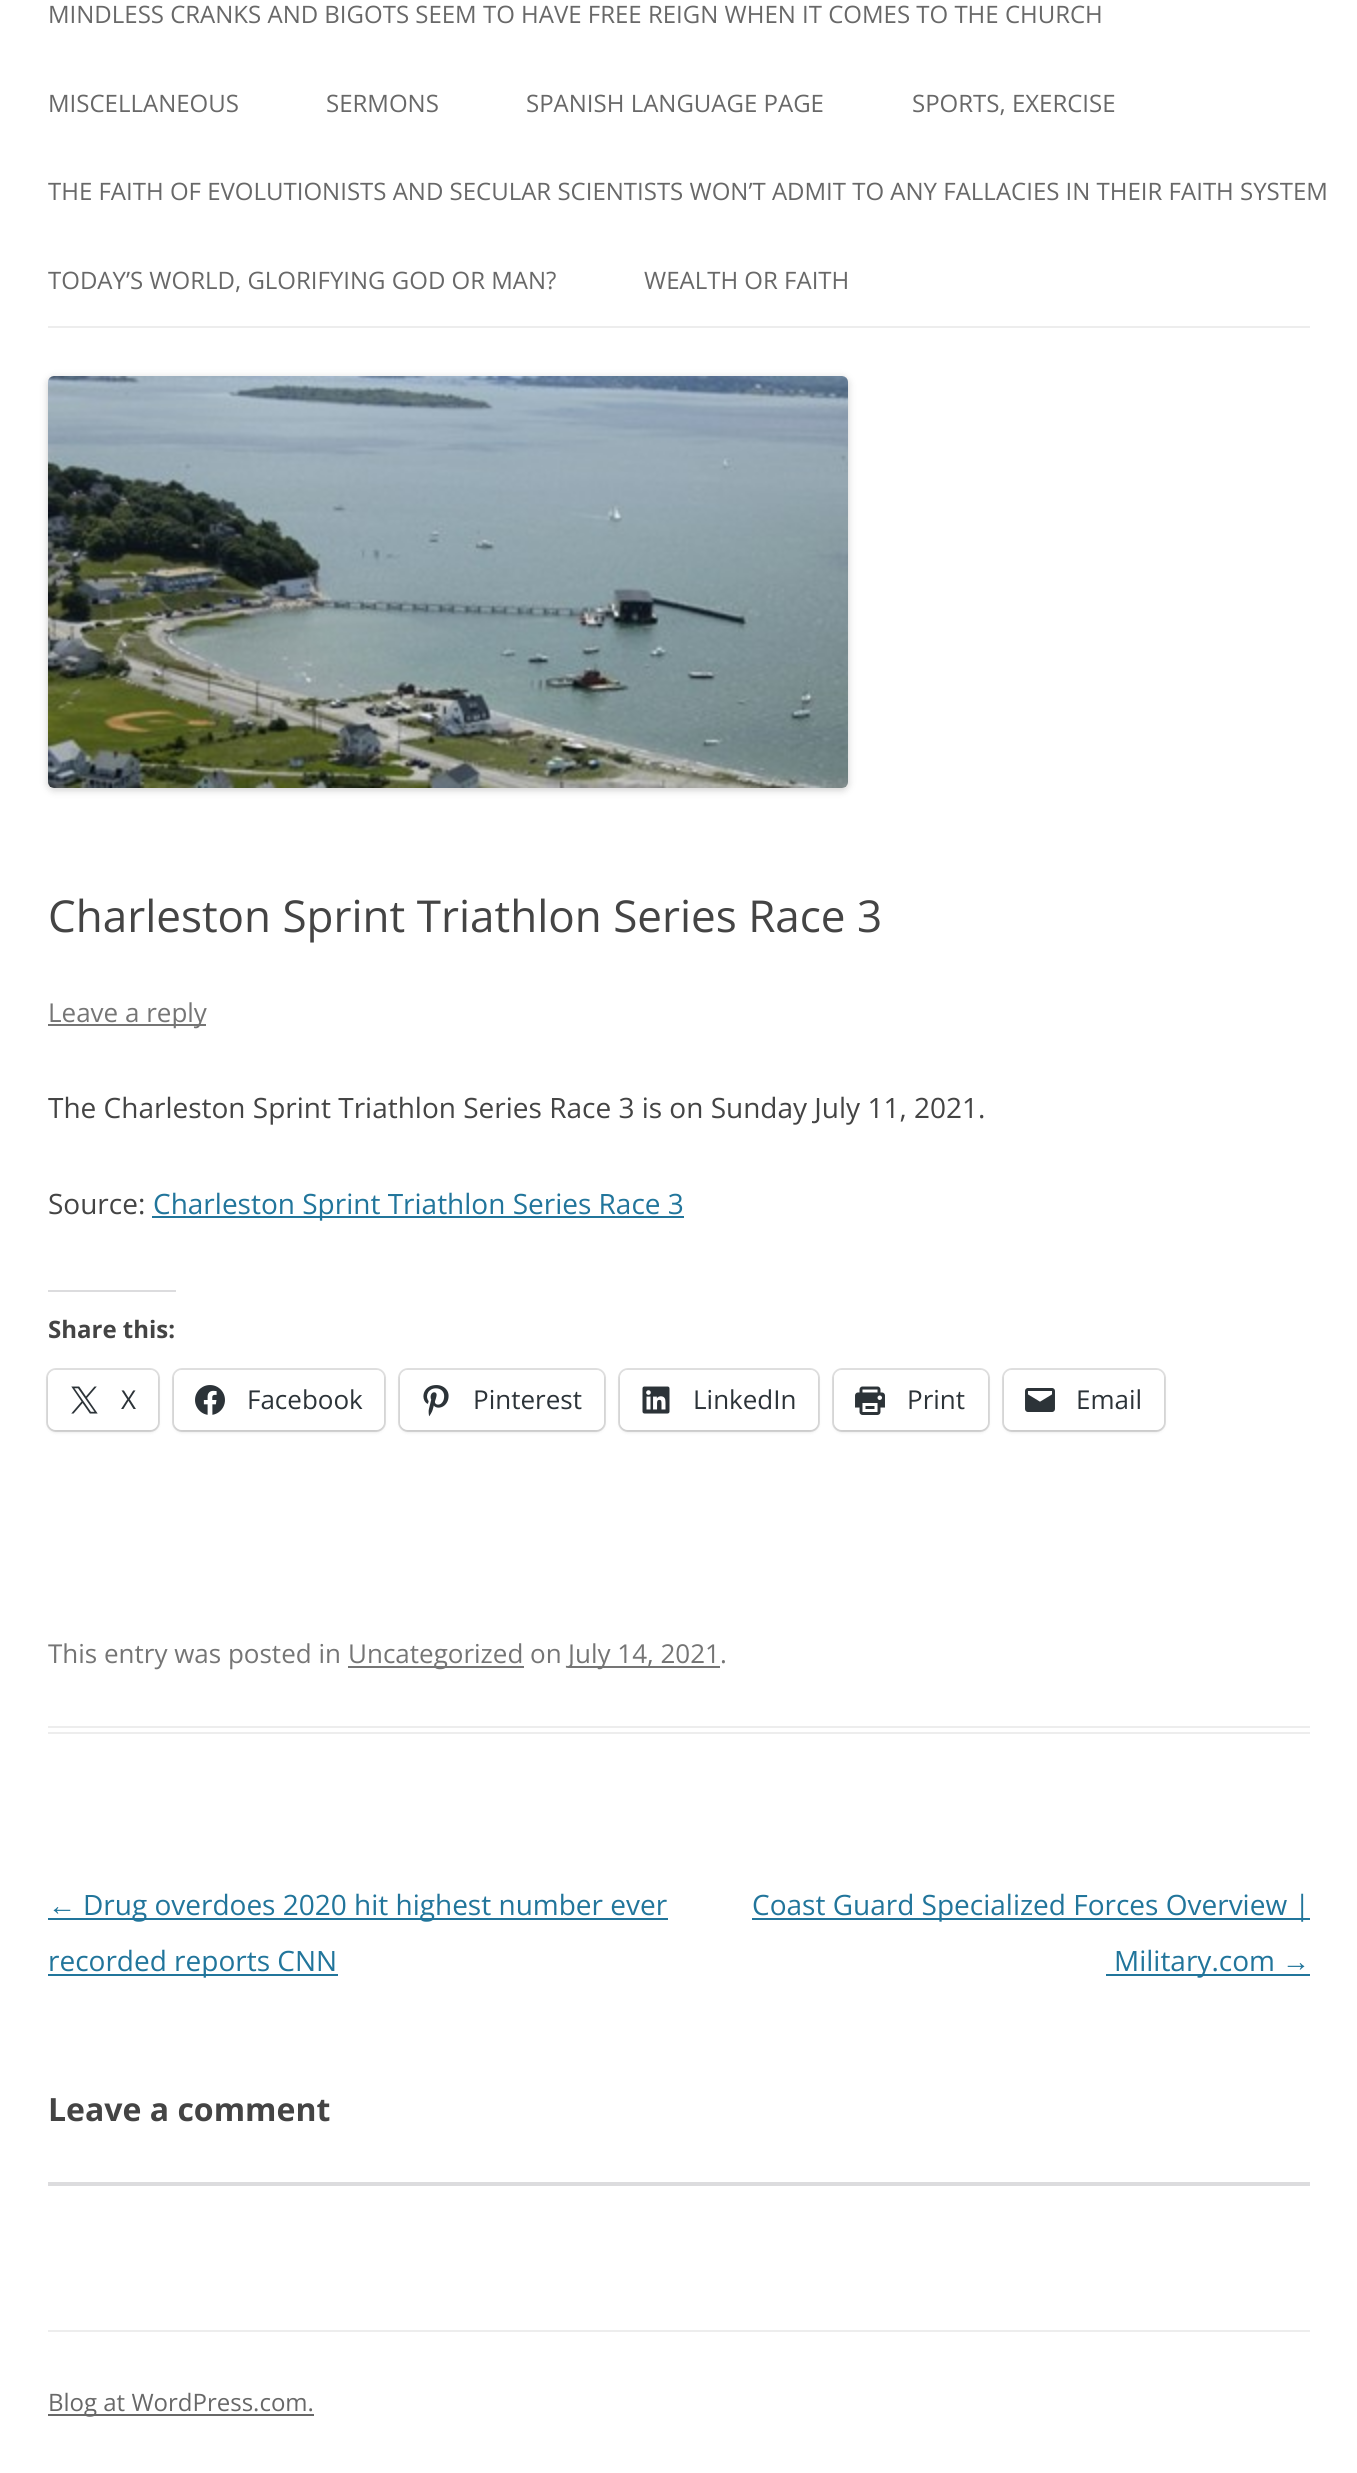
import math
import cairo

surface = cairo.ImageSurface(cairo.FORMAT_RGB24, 1357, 2473)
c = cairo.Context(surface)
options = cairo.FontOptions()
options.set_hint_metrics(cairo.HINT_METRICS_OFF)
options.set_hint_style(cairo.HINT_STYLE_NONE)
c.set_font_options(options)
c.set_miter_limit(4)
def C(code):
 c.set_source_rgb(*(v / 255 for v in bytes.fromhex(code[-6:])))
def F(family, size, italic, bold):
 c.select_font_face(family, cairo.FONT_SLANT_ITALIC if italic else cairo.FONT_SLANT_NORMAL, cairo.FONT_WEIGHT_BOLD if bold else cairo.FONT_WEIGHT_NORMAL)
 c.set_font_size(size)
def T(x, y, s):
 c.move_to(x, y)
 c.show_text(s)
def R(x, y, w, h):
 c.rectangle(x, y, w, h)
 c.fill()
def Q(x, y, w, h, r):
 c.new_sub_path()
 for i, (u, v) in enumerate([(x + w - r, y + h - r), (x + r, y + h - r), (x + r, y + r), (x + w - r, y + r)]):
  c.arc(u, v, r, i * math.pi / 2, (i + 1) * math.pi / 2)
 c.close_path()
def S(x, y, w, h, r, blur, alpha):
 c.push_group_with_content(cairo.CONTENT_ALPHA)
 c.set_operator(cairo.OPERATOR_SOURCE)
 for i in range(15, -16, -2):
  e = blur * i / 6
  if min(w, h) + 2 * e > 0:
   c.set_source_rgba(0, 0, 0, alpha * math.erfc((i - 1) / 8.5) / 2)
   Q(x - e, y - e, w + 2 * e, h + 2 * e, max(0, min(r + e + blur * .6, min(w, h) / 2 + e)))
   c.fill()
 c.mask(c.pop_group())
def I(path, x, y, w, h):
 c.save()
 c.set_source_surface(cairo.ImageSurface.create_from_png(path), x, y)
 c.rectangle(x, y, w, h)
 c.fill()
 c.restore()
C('ffffff')
c.paint()
C('ededed')
R(48,326,1262,2)
F('Open Sans',24,0,0)
C('686868')
T(48,23,'MINDLESS CRANKS AND BIGOTS SEEM TO HAVE FREE REIGN WHEN IT COMES TO THE CHURCH')
T(48,112,'MISCELLANEOUS')
T(326,112,'SERMONS')
T(526,112,'SPANISH LANGUAGE PAGE')
T(912,112,'SPORTS, EXERCISE')
T(48,200,'THE FAITH OF EVOLUTIONISTS AND SECULAR SCIENTISTS WON’T ADMIT TO ANY FALLACIES IN THEIR FAITH SYSTEM')
T(48,289,'TODAY’S WORLD, GLORIFYING GOD OR MAN?')
T(644,289,'WEALTH OR FAITH')
C('000000')
S(48,378,800,412,6,4,.2)
I('1.png',48,376,800,412)
C('ededed')
R(48,1726,1262,2)
R(48,1732,1262,2)
F('Open Sans',44,0,0)
C('444444')
T(48,932,'Charleston Sprint Triathlon Series Race 3')
C('757575')
R(48,1024,158,2)
F('Open Sans',26,0,0)
T(48,1022,'Leave a reply')
F('Open Sans',28,0,0)
C('444444')
T(48,1118,'The Charleston Sprint Triathlon Series Race 3 is on Sunday July 11, 2021.')
T(48,1214,'Source:')
C('21759b')
R(152,1216,532,2)
T(153,1214,'Charleston Sprint Triathlon Series Race 3')
C('dcdcde')
R(48,1290,128,2)
F('Open Sans',24,0,1)
C('444444')
T(48,1338,'Share this:')
Q(47,1369,112,62,9)
C('e0e0e0')
c.stroke()
C('000000')
S(48,1372,110,60,8,2,.12)
C('ffffff')
Q(48,1370,110,60,8)
c.fill()
I('2.png',71,1386,27,28)
F('Open Sans',26,0,0)
C('2c3338')
T(121,1409,'X')
Q(173,1369,212,62,9)
C('e0e0e0')
c.stroke()
C('000000')
S(174,1372,210,60,8,2,.12)
C('ffffff')
Q(174,1370,210,60,8)
c.fill()
I('3.png',195,1385,30,30)
C('2c3338')
T(247,1409,'Facebook')
Q(399,1369,206,62,9)
C('e0e0e0')
c.stroke()
C('000000')
S(400,1372,204,60,8,2,.12)
C('ffffff')
Q(400,1370,204,60,8)
c.fill()
I('4.png',423,1385,26,32)
C('2c3338')
T(473,1409,'Pinterest')
Q(619,1369,200,62,9)
C('e0e0e0')
c.stroke()
C('000000')
S(620,1372,198,60,8,2,.12)
C('ffffff')
Q(620,1370,198,60,8)
c.fill()
I('5.png',642,1386,28,28)
C('2c3338')
T(693,1409,'LinkedIn')
Q(833,1369,156,62,9)
C('e0e0e0')
c.stroke()
C('000000')
S(834,1372,154,60,8,2,.12)
C('ffffff')
Q(834,1370,154,60,8)
c.fill()
I('6.png',855,1386,30,29)
C('2c3338')
T(907,1409,'Print')
Q(1003,1369,162,62,9)
C('e0e0e0')
c.stroke()
C('000000')
S(1004,1372,160,60,8,2,.12)
C('ffffff')
Q(1004,1370,160,60,8)
c.fill()
I('7.png',1025,1388,30,24)
C('2c3338')
T(1076,1409,'Email')
C('757575')
T(48,1663,'This entry was posted in')
R(348,1666,176,2)
T(348,1663,'Uncategorized on')
R(568,1666,152,2)
T(568,1663,'July 14, 2021.')
F('Liberation Sans',28,0,0)
C('21759b')
T(48,1915,'←')
R(48,1918,620,2)
F('Open Sans',28,0,0)
T(83,1915,'Drug overdoes 2020 hit highest number ever')
R(48,1974,290,2)
T(48,1971,'recorded reports CNN')
R(752,1918,558,2)
T(752,1915,'Coast Guard Specialized Forces Overview |')
R(1106,1974,204,2)
T(1114,1971,'Military.com')
F('Liberation Sans',28,0,0)
T(1282,1971,'→')
F('Open Sans',32,0,1)
C('444444')
T(48,2121,'Leave a comment')
C('dcdcde')
R(48,2182,1262,4)
C('ededed')
R(48,2330,1262,2)
C('686868')
R(48,2414,266,2)
F('Open Sans',24,0,0)
T(48,2411,'Blog at WordPress.com.')
surface.write_to_png('o.png')
